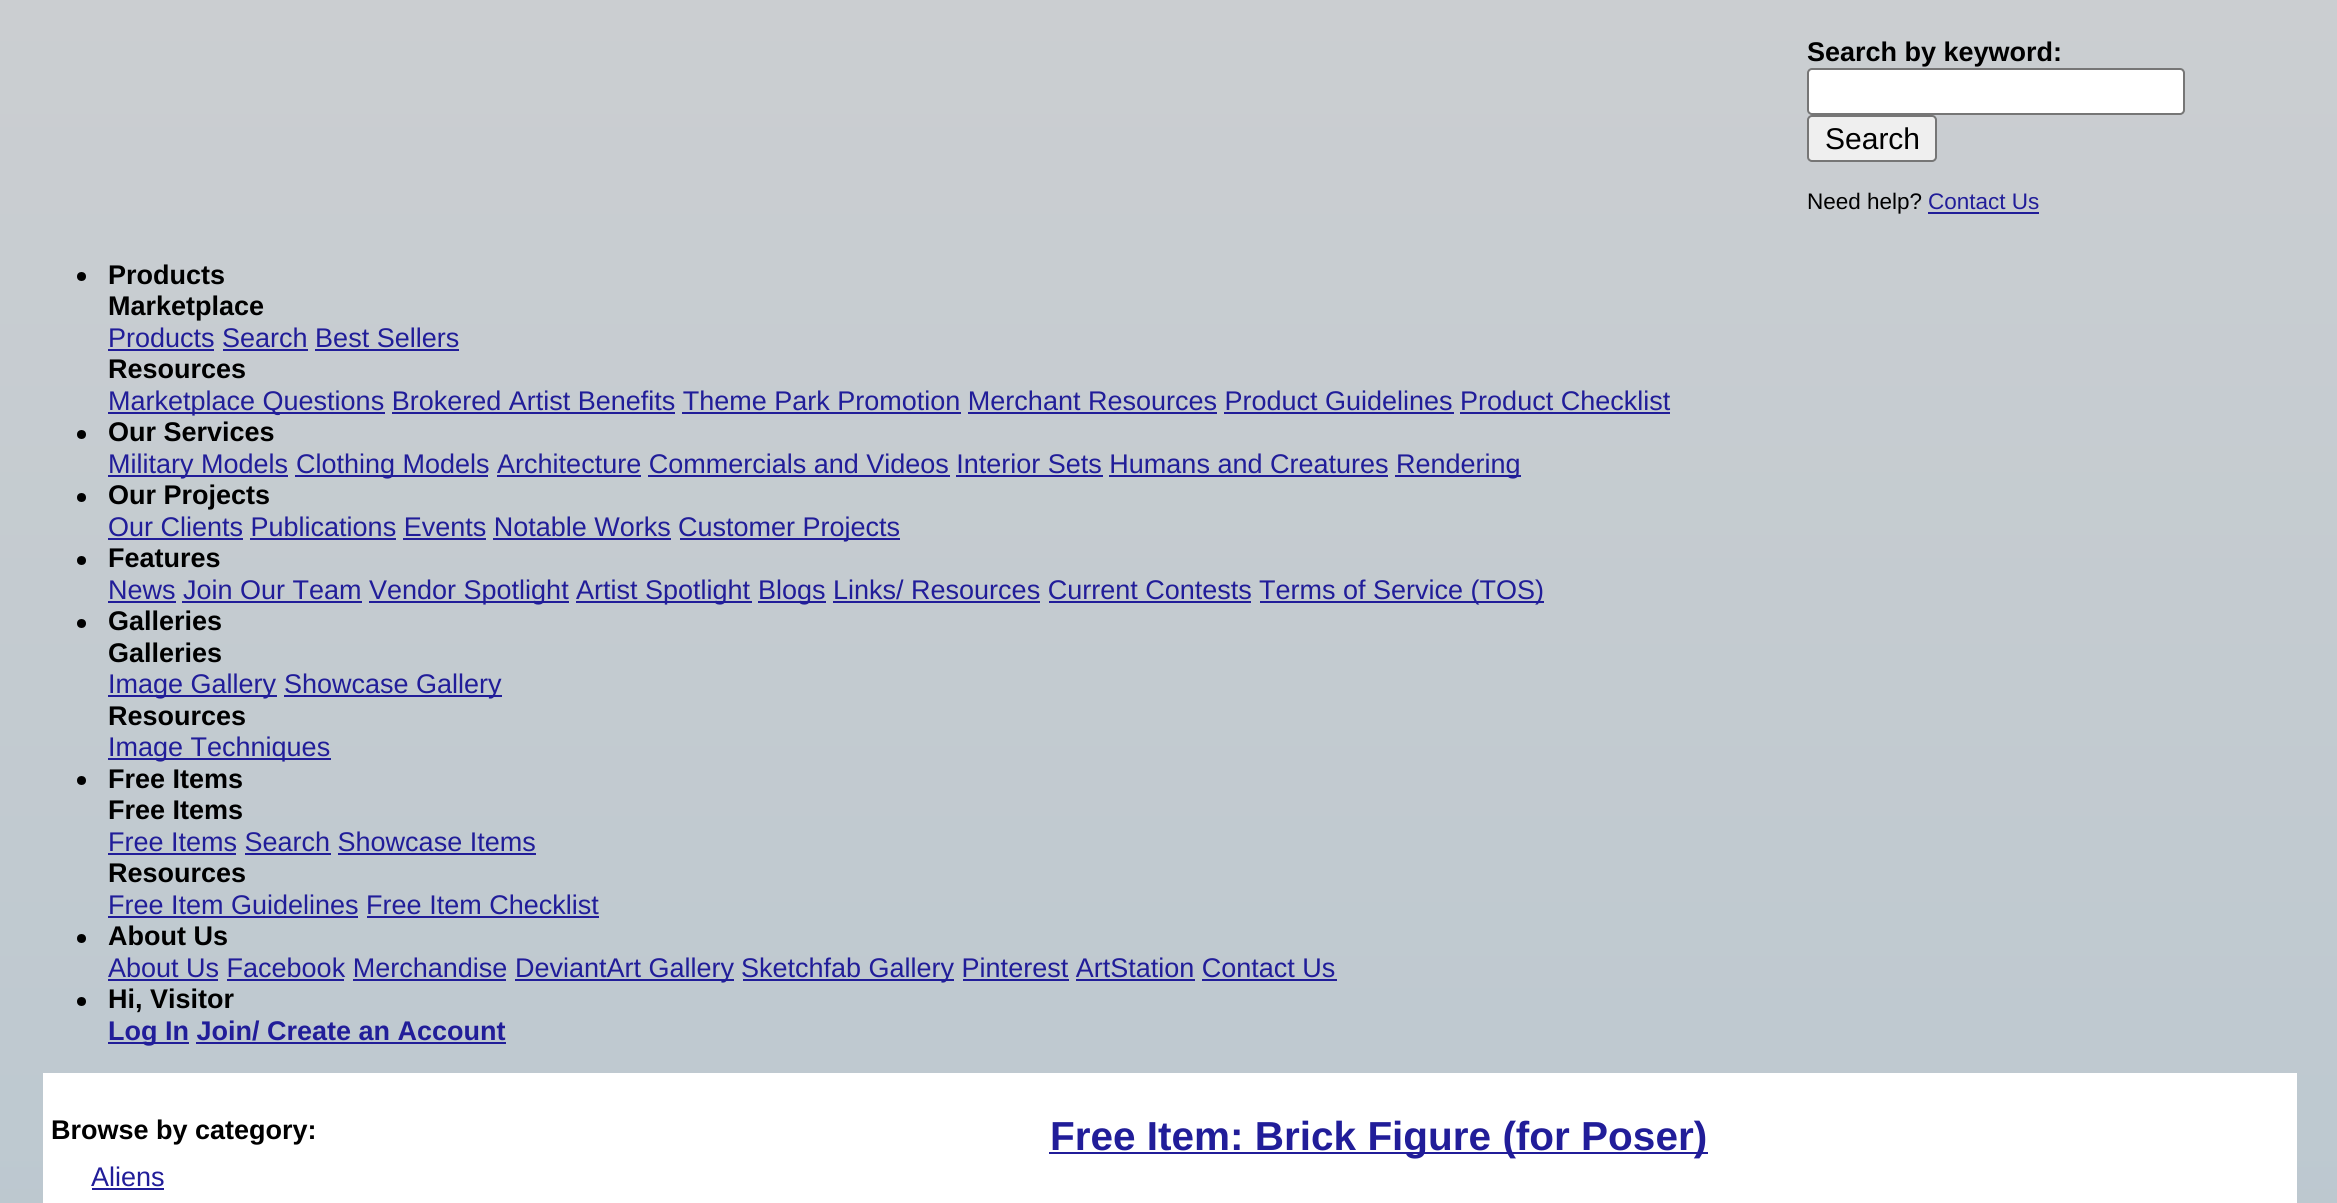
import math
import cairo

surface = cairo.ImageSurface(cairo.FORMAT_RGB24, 2337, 1203)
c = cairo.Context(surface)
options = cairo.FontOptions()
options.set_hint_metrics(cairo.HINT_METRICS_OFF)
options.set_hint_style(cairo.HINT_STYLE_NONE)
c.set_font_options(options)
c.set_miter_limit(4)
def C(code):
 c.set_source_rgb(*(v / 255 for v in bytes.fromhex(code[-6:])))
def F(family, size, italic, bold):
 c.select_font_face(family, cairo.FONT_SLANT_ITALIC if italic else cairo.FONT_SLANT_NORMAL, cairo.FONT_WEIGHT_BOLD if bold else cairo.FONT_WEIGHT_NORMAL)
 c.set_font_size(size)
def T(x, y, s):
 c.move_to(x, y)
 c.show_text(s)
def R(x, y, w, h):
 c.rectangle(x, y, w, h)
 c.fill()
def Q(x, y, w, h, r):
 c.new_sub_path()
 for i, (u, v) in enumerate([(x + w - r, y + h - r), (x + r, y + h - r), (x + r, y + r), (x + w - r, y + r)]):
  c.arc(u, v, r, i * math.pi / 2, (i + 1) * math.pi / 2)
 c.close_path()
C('ffffff')
c.paint()
gradient = cairo.LinearGradient(1169,0,1169,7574)
gradient.add_color_stop_rgba(0,0.796,0.808,0.82,1)
gradient.add_color_stop_rgba(1,0.451,0.667,0.78,1)
c.set_source(gradient)
R(0,0,2337,1203)
F('Liberation Sans',27,0,1)
C('000000')
T(1807,61,'Search by keyword:')
C('ffffff')
Q(1808,69,376,45,4)
c.fill_preserve()
C('767676')
c.stroke()
C('efefef')
Q(1808,116,128,45,4)
c.fill_preserve()
C('767676')
c.stroke()
F('Liberation Sans',30,0,0)
C('000000')
T(1825,149,'Search')
F('Liberation Sans',22.5,0,0)
T(1807,209,'Need help?')
C('211d99')
T(1928,209,'Contact Us')
R(1928,212,111,2)
C('000000')
c.new_path()
c.arc(81.5,276.5,4.5,0,2 * math.pi)
c.fill()
F('Liberation Sans',27,0,1)
T(108,284,'Products')
T(108,315,'Marketplace')
F('Liberation Sans',27,0,0)
C('211d99')
T(108,347,'Products Search Best Sellers')
R(108,349,106,2)
R(223,349,85,2)
R(315,349,144,2)
F('Liberation Sans',27,0,1)
C('000000')
T(108,378,'Resources')
C('211d99')
R(108,412,277,2)
F('Liberation Sans',27,0,0)
T(108,410,'Marketplace Questions Brokered Artist Benefits Theme Park Promotion Merchant Resources Product Guidelines Product Checklist')
R(392,412,283,2)
R(682,412,279,2)
R(968,412,249,2)
R(1224,412,230,2)
R(1460,412,210,2)
C('000000')
c.new_path()
c.arc(81.5,434.5,4.5,0,2 * math.pi)
c.fill()
F('Liberation Sans',27,0,1)
T(108,441,'Our Services')
C('211d99')
R(108,475,180,2)
F('Liberation Sans',27,0,0)
T(108,473,'Military Models')
R(295,475,193,2)
T(296,473,'Clothing Models Architecture Commercials and Videos Interior Sets Humans and Creatures')
R(1395,475,126,2)
T(1396,473,'Rendering')
R(497,475,144,2)
R(648,475,302,2)
R(956,475,147,2)
R(1109,475,279,2)
C('000000')
c.new_path()
c.arc(81.5,497.5,4.5,0,2 * math.pi)
c.fill()
F('Liberation Sans',27,0,1)
T(108,504,'Our Projects')
F('Liberation Sans',27,0,0)
C('211d99')
T(108,536,'Our Clients Publications Events Notable Works')
R(108,538,135,2)
R(680,538,220,2)
T(678,536,'Customer Projects')
R(250,538,146,2)
R(403,538,83,2)
R(493,538,178,2)
C('000000')
c.new_path()
c.arc(81.5,560.5,4.5,0,2 * math.pi)
c.fill()
F('Liberation Sans',27,0,1)
T(108,567,'Features')
F('Liberation Sans',27,0,0)
C('211d99')
T(108,599,'News Join Our Team')
R(108,601,68,2)
R(369,601,200,2)
T(369,599,'Vendor Spotlight')
R(576,601,176,2)
T(576,599,'Artist Spotlight')
R(758,601,68,2)
T(758,599,'Blogs Links/ Resources Current Contests')
R(1260,601,284,2)
T(1259,599,'Terms of Service (TOS)')
R(182,601,180,2)
R(833,601,207,2)
R(1049,601,202,2)
C('000000')
c.new_path()
c.arc(81.5,623.5,4.5,0,2 * math.pi)
c.fill()
F('Liberation Sans',27,0,1)
T(108,630,'Galleries')
T(108,662,'Galleries')
C('211d99')
R(108,695,169,2)
F('Liberation Sans',27,0,0)
T(108,693,'Image Gallery')
R(284,695,218,2)
T(284,693,'Showcase Gallery')
F('Liberation Sans',27,0,1)
C('000000')
T(108,725,'Resources')
C('211d99')
R(108,758,223,2)
F('Liberation Sans',27,0,0)
T(108,756,'Image Techniques')
C('000000')
c.new_path()
c.arc(81.5,780.5,4.5,0,2 * math.pi)
c.fill()
F('Liberation Sans',27,0,1)
T(108,788,'Free Items')
T(108,819,'Free Items')
F('Liberation Sans',27,0,0)
C('211d99')
T(108,851,'Free Items Search Showcase Items')
R(108,853,128,2)
R(245,853,86,2)
R(338,853,198,2)
F('Liberation Sans',27,0,1)
C('000000')
T(108,882,'Resources')
F('Liberation Sans',27,0,0)
C('211d99')
T(108,914,'Free Item Guidelines Free Item Checklist')
R(108,916,250,2)
R(367,916,232,2)
C('000000')
c.new_path()
c.arc(81.5,938.5,4.5,0,2 * math.pi)
c.fill()
F('Liberation Sans',27,0,1)
T(108,945,'About Us')
F('Liberation Sans',27,0,0)
C('211d99')
T(108,977,'About Us Facebook Merchandise')
R(108,979,110,2)
R(515,979,219,2)
T(515,977,'DeviantArt Gallery')
R(743,979,211,2)
T(741,977,'Sketchfab Gallery Pinterest ArtStation Contact Us')
R(227,979,117,2)
R(353,979,153,2)
R(963,979,106,2)
R(1076,979,119,2)
R(1202,979,135,2)
C('000000')
c.new_path()
c.arc(81.5,1001.5,4.5,0,2 * math.pi)
c.fill()
F('Liberation Sans',27,0,1)
T(108,1008,'Hi, Visitor')
C('211d99')
R(108,1042,81,2)
T(108,1040,'Log In Join/ Create an Account')
R(196,1042,310,2)
C('ffffff')
R(43,1073,2254,130)
C('000000')
T(51,1139,'Browse by category:')
F('Liberation Sans',27,0,0)
C('211d99')
T(91,1186,'Aliens')
R(92,1188,72,2)
R(1049,1152,659,2)
F('Liberation Sans',40.5,0,1)
T(1050,1150,'Free Item: Brick Figure (for Poser)')
surface.write_to_png('o.png')
